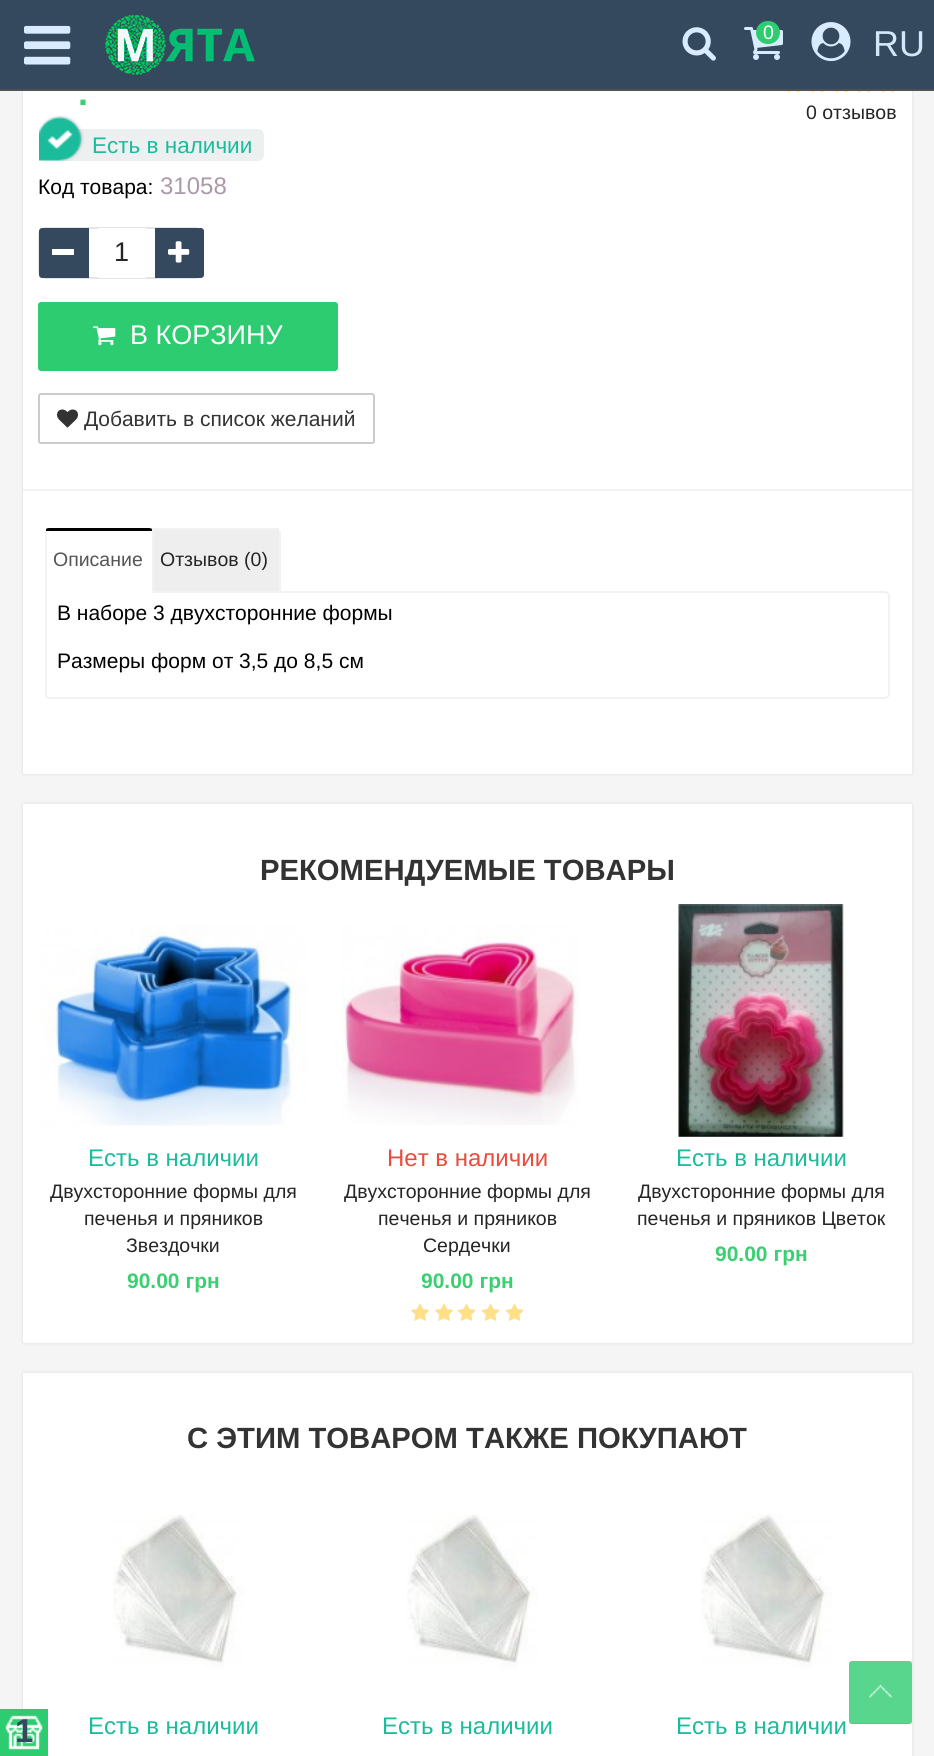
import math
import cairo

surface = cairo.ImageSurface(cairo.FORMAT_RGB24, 934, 1756)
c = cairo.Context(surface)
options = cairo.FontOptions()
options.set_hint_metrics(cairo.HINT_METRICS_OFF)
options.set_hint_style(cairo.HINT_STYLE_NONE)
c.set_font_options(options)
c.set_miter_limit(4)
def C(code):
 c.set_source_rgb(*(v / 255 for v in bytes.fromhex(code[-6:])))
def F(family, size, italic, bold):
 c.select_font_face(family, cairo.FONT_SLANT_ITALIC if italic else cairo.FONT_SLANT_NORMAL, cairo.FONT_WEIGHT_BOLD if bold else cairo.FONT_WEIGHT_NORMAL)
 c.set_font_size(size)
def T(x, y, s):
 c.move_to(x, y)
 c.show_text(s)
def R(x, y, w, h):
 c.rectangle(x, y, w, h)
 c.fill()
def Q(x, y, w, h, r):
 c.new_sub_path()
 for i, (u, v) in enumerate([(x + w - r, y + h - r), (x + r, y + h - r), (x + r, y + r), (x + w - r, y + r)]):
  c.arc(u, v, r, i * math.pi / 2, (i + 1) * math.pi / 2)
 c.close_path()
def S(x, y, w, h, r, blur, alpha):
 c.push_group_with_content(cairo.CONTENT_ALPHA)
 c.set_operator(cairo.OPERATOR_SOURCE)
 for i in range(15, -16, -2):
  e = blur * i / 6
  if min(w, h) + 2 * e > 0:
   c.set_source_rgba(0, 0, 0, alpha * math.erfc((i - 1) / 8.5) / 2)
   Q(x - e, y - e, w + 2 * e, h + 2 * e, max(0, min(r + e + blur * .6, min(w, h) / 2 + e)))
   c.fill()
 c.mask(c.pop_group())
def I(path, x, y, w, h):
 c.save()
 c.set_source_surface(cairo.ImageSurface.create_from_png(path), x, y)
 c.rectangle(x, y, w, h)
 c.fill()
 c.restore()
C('f5f5f5')
c.paint()
C('000000')
S(23,-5,889,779,0,1.5,.1)
C('34495e')
R(0,0,934,89)
C('525252')
R(0,89,934,2)
I('1.png',24,25,47,40)
I('2.png',105,15,150,60)
I('3.png',682,27,34,34)
I('4.png',744,27,39,33)
C('2ecc71')
Q(756,21,24,23,11.5)
c.fill()
F('Liberation Sans',19.5,0,0)
C('ffffff')
T(763,39,'0')
I('5.png',811,22,40,40)
F('Liberation Sans',36,0,0)
C('d4e7f9')
T(873,56,'RU')
C('ffffff')
R(23,91,889,683)
F('Liberation Sans',36,0,1)
C('3ad071')
T(78,105,'.')
I('6.png',787,91,13,2)
I('6.png',811,91,13,2)
I('6.png',835,91,13,2)
I('7.png',858,91,12,2)
I('7.png',882,91,12,2)
F('Liberation Sans',19.5,0,0)
C('252525')
T(806,119,'0 отзывов')
C('ecf0f1')
Q(39,129,225,32,6)
c.fill()
I('8.png',39,115,45,46)
F('Liberation Sans',22.5,0,0)
C('1abc9c')
T(92,153,'Есть в наличии')
F('Liberation Sans',21,0,0)
C('000000')
T(38,194,'Код товара:')
F('Liberation Sans',24,0,0)
C('aa99aa')
T(160,194,'31058')
Q(39,228,163,50,7)
C('e5e5e5')
c.stroke()
C('34495e')
c.new_path()
c.move_to(42,228)
c.line_to(89,228)
c.line_to(89,278)
c.line_to(42,278)
c.curve_to(40.5,278,39,276.5,39,275)
c.line_to(39,231)
c.curve_to(39,229.5,40.5,228,42,228)
c.close_path()
c.fill()
C('ffffff')
R(52,249,22,6)
C('34495e')
c.new_path()
c.move_to(155,228)
c.line_to(201,228)
c.curve_to(202.5,228,204,229.5,204,231)
c.line_to(204,275)
c.curve_to(204,276.5,202.5,278,201,278)
c.line_to(155,278)
c.close_path()
c.fill()
I('9.png',168,241,22,22)
C('ffffff')
R(98,228,48,50)
F('Liberation Sans',27,0,0)
C('252525')
T(114,261,'1')
C('2ecc71')
Q(38,302,300,69,3)
c.fill()
I('10.png',93,326,23,20)
C('ffffff')
T(130,344,'В КОРЗИНУ')
Q(39,394,335,49,2)
C('cccccc')
c.stroke()
I('11.png',57,409,21,19)
F('Liberation Sans',21,0,0)
C('333333')
T(84,426,'Добавить в список желаний')
C('f2f2f2')
R(23,489,889,2)
R(279,531,2,60)
R(45,531,2,60)
c.new_path()
c.move_to(46,592)
c.line_to(885,592)
c.curve_to(887,592,889,594,889,596)
c.line_to(889,694)
c.curve_to(889,696,887,698,885,698)
c.line_to(50,698)
c.curve_to(48,698,46,696,46,694)
c.close_path()
c.stroke()
C('ffffff')
c.new_path()
c.move_to(50,528)
c.line_to(149,528)
c.curve_to(150.5,528,152,529.5,152,531)
c.line_to(152,593)
c.line_to(47,593)
c.line_to(47,531)
c.curve_to(47,529.5,48.5,528,50,528)
c.close_path()
c.fill()
C('000000')
c.new_path()
c.move_to(50,528)
c.curve_to(49,528,47,528,46,529)
c.line_to(46,531)
c.line_to(152,531)
c.line_to(152,529)
c.curve_to(151,528,149,528,148,528)
c.close_path()
c.fill()
F('Liberation Sans',19.5,0,0)
C('555555')
T(53,566,'Описание')
C('eeeeee')
R(154,530,125,61)
C('f2f2f2')
R(152,528,127,2)
R(152,528,2,65)
C('252525')
T(160,566,'Отзывов (0)')
F('Liberation Sans',21,0,0)
C('000000')
T(57,620,'В наборе 3 двухсторонние формы')
T(57,668,'Размеры форм от 3,5 до 8,5 см')
C('000000')
S(23,804,889,539,0,1.5,.1)
C('ffffff')
R(23,804,889,539)
F('Liberation Sans',29.25,0,1)
C('333333')
T(260,880,'РЕКОМЕНДУЕМЫЕ ТОВАРЫ')
I('12.png',41,925,266,201)
F('Liberation Sans',24,0,0)
C('1abc9c')
T(88,1166,'Есть в наличии')
F('Liberation Sans',19.5,0,0)
C('252525')
T(50,1198,'Двухсторонние формы для')
T(84,1225,'печенья и пряников')
T(126,1252,'Звездочки')
F('Liberation Sans',21,0,1)
C('3ad071')
T(127,1288,'90.00 грн')
I('13.png',341,925,238,200)
F('Liberation Sans',24,0,0)
C('e74c3c')
T(387,1166,'Нет в наличии')
F('Liberation Sans',19.5,0,0)
C('252525')
T(344,1198,'Двухсторонние формы для')
T(378,1225,'печенья и пряников')
T(423,1252,'Сердечки')
F('Liberation Sans',21,0,1)
C('3ad071')
T(421,1288,'90.00 грн')
I('14.png',411,1303,18,18)
I('14.png',435,1303,18,18)
I('15.png',457,1303,19,18)
I('15.png',481,1303,19,18)
I('15.png',505,1303,19,18)
I('16.png',677,904,167,233)
F('Liberation Sans',24,0,0)
C('1abc9c')
T(676,1166,'Есть в наличии')
F('Liberation Sans',19.5,0,0)
C('252525')
T(638,1198,'Двухсторонние формы для')
T(637,1225,'печенья и пряников Цветок')
F('Liberation Sans',21,0,1)
C('3ad071')
T(715,1261,'90.00 грн')
C('000000')
S(23,1373,889,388,0,1.5,.1)
C('ffffff')
R(23,1373,889,383)
F('Liberation Sans',29.25,0,1)
C('333333')
T(187,1448,'С ЭТИМ ТОВАРОМ ТАКЖЕ ПОКУПАЮТ')
I('17.png',113,1514,131,154)
F('Liberation Sans',24,0,0)
C('1abc9c')
T(88,1734,'Есть в наличии')
I('18.png',407,1514,131,154)
T(382,1734,'Есть в наличии')
I('18.png',701,1514,131,154)
T(676,1734,'Есть в наличии')
C('2ecc71')
Q(849,1661,63,63,3)
c.fill()
I('19.png',849,1661,63,63)
R(0,1709,48,47)
I('20.png',5,1715,38,35)
F('Liberation Sans',33,0,1)
C('34495e')
T(15,1742,'1')
surface.write_to_png('o.png')
